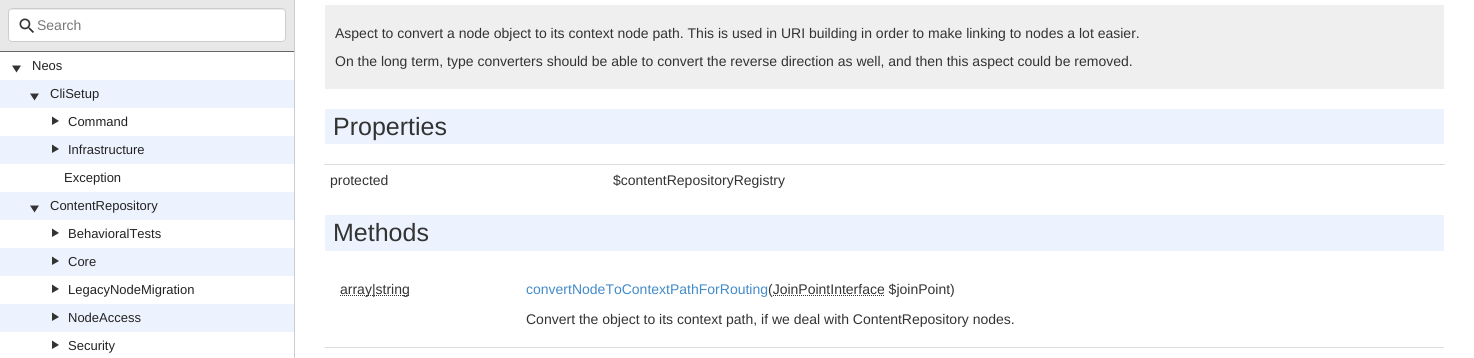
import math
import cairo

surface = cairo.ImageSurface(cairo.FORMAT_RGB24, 1474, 358)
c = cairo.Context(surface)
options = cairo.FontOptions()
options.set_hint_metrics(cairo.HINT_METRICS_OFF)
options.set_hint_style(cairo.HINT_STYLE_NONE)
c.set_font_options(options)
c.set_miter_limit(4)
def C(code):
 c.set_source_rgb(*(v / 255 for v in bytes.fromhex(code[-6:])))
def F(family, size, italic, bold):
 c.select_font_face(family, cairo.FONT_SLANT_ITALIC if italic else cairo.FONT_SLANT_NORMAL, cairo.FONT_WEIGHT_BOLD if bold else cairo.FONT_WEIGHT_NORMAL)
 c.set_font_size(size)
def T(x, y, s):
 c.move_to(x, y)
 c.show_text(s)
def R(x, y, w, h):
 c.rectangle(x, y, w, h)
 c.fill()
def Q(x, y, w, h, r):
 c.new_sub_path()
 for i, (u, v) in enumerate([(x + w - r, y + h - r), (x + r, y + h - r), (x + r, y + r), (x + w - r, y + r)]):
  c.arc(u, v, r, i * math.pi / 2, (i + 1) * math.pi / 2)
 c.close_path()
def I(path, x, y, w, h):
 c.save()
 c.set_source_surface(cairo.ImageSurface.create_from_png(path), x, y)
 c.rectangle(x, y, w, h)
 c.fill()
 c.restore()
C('ffffff')
c.paint()
C('cccccc')
R(294,0,1,358)
C('e8e8e8')
R(0,0,294,51)
C('666666')
R(0,51,294,1)
C('ffffff')
Q(8,8,278,34,4)
c.fill()
C('ececec')
c.new_path()
c.move_to(12,10)
c.line_to(282,10)
c.curve_to(284,10,285,11,285,13)
c.line_to(285,12)
c.curve_to(285,10,284,9,282,9)
c.line_to(12,9)
c.curve_to(10,9,9,10,9,12)
c.line_to(9,13)
c.curve_to(9,11,10,10,12,10)
c.close_path()
c.fill()
Q(8.5,8.5,277,33,3.5)
C('cccccc')
c.set_line_width(1)
c.stroke()
I('1.png',19,18,15,15)
F('Liberation Sans',14,0,0)
C('777777')
T(37,30,'Search')
C('edf3fe')
R(0,80,294,28)
R(0,136,294,28)
R(0,192,294,28)
R(0,248,294,28)
R(0,304,294,28)
F('Liberation Sans',13,0,0)
C('222222')
T(32,70,'Neos')
C('333333')
c.new_path()
c.move_to(21,65.5)
c.line_to(12,65.5)
c.line_to(16.5,72.5)
c.close_path()
c.move_to(39,93.5)
c.line_to(30,93.5)
c.line_to(34.5,100.5)
c.close_path()
c.fill()
C('222222')
T(50,98,'CliSetup')
C('333333')
c.new_path()
c.move_to(52,116.5)
c.line_to(52,125)
c.line_to(59,121)
c.close_path()
c.fill()
C('222222')
T(68,126,'Command')
C('333333')
c.new_path()
c.move_to(52,144.5)
c.line_to(52,153)
c.line_to(59,149)
c.close_path()
c.fill()
C('222222')
T(68,154,'Infrastructure')
T(64,182,'Exception')
C('333333')
c.new_path()
c.move_to(39,205.5)
c.line_to(30,205.5)
c.line_to(34.5,212.5)
c.close_path()
c.fill()
C('222222')
T(50,210,'ContentRepository')
C('333333')
c.new_path()
c.move_to(52,228.5)
c.line_to(52,237)
c.line_to(59,233)
c.close_path()
c.fill()
C('222222')
T(68,238,'BehavioralTests')
C('333333')
c.new_path()
c.move_to(52,256.5)
c.line_to(52,265)
c.line_to(59,261)
c.close_path()
c.fill()
C('222222')
T(68,266,'Core')
C('333333')
c.new_path()
c.move_to(52,284.5)
c.line_to(52,293)
c.line_to(59,289)
c.close_path()
c.fill()
C('222222')
T(68,294,'LegacyNodeMigration')
C('333333')
c.new_path()
c.move_to(52,312.5)
c.line_to(52,321)
c.line_to(59,317)
c.close_path()
c.fill()
C('222222')
T(68,322,'NodeAccess')
C('333333')
c.new_path()
c.move_to(52,340.5)
c.line_to(52,349)
c.line_to(59,345)
c.close_path()
c.fill()
C('222222')
T(68,350,'Security')
C('efefef')
R(325,5,1119,84)
F('Liberation Sans',14,0,0)
C('333333')
T(335,38,'Aspect to convert a node object to its context node path. This is used in URI building in order to make linking to nodes a lot easier.')
T(335,66,'On the long term, type converters should be able to convert the reverse direction as well, and then this aspect could be removed.')
C('edf3fe')
R(325,109,1119,35)
F('Liberation Sans',25,0,0)
C('333333')
T(333,135,'Properties')
C('dddddd')
R(324,164,1121,1)
F('Liberation Sans',14,0,0)
C('333333')
T(330,185,'protected')
T(613,185,'$contentRepositoryRegistry')
C('edf3fe')
R(325,215,1119,36)
F('Liberation Sans',25,0,0)
C('333333')
T(333,241,'Methods')
C('dddddd')
R(325,347,1119,1)
c.new_path()
c.move_to(340,295.5)
c.line_to(409.5,295.5)
C('333333')
c.set_dash([1,1])
c.stroke()
F('Liberation Sans',14,0,0)
T(340,294,'array|string')
C('428bca')
T(526,294,'convertNodeToContextPathForRouting')
C('333333')
T(768,294,'(JoinPointInterface $joinPoint)')
c.new_path()
c.move_to(773,295.5)
c.line_to(885,295.5)
c.stroke()
T(526,324,'Convert the object to its context path, if we deal with ContentRepository nodes.')
surface.write_to_png('o.png')
